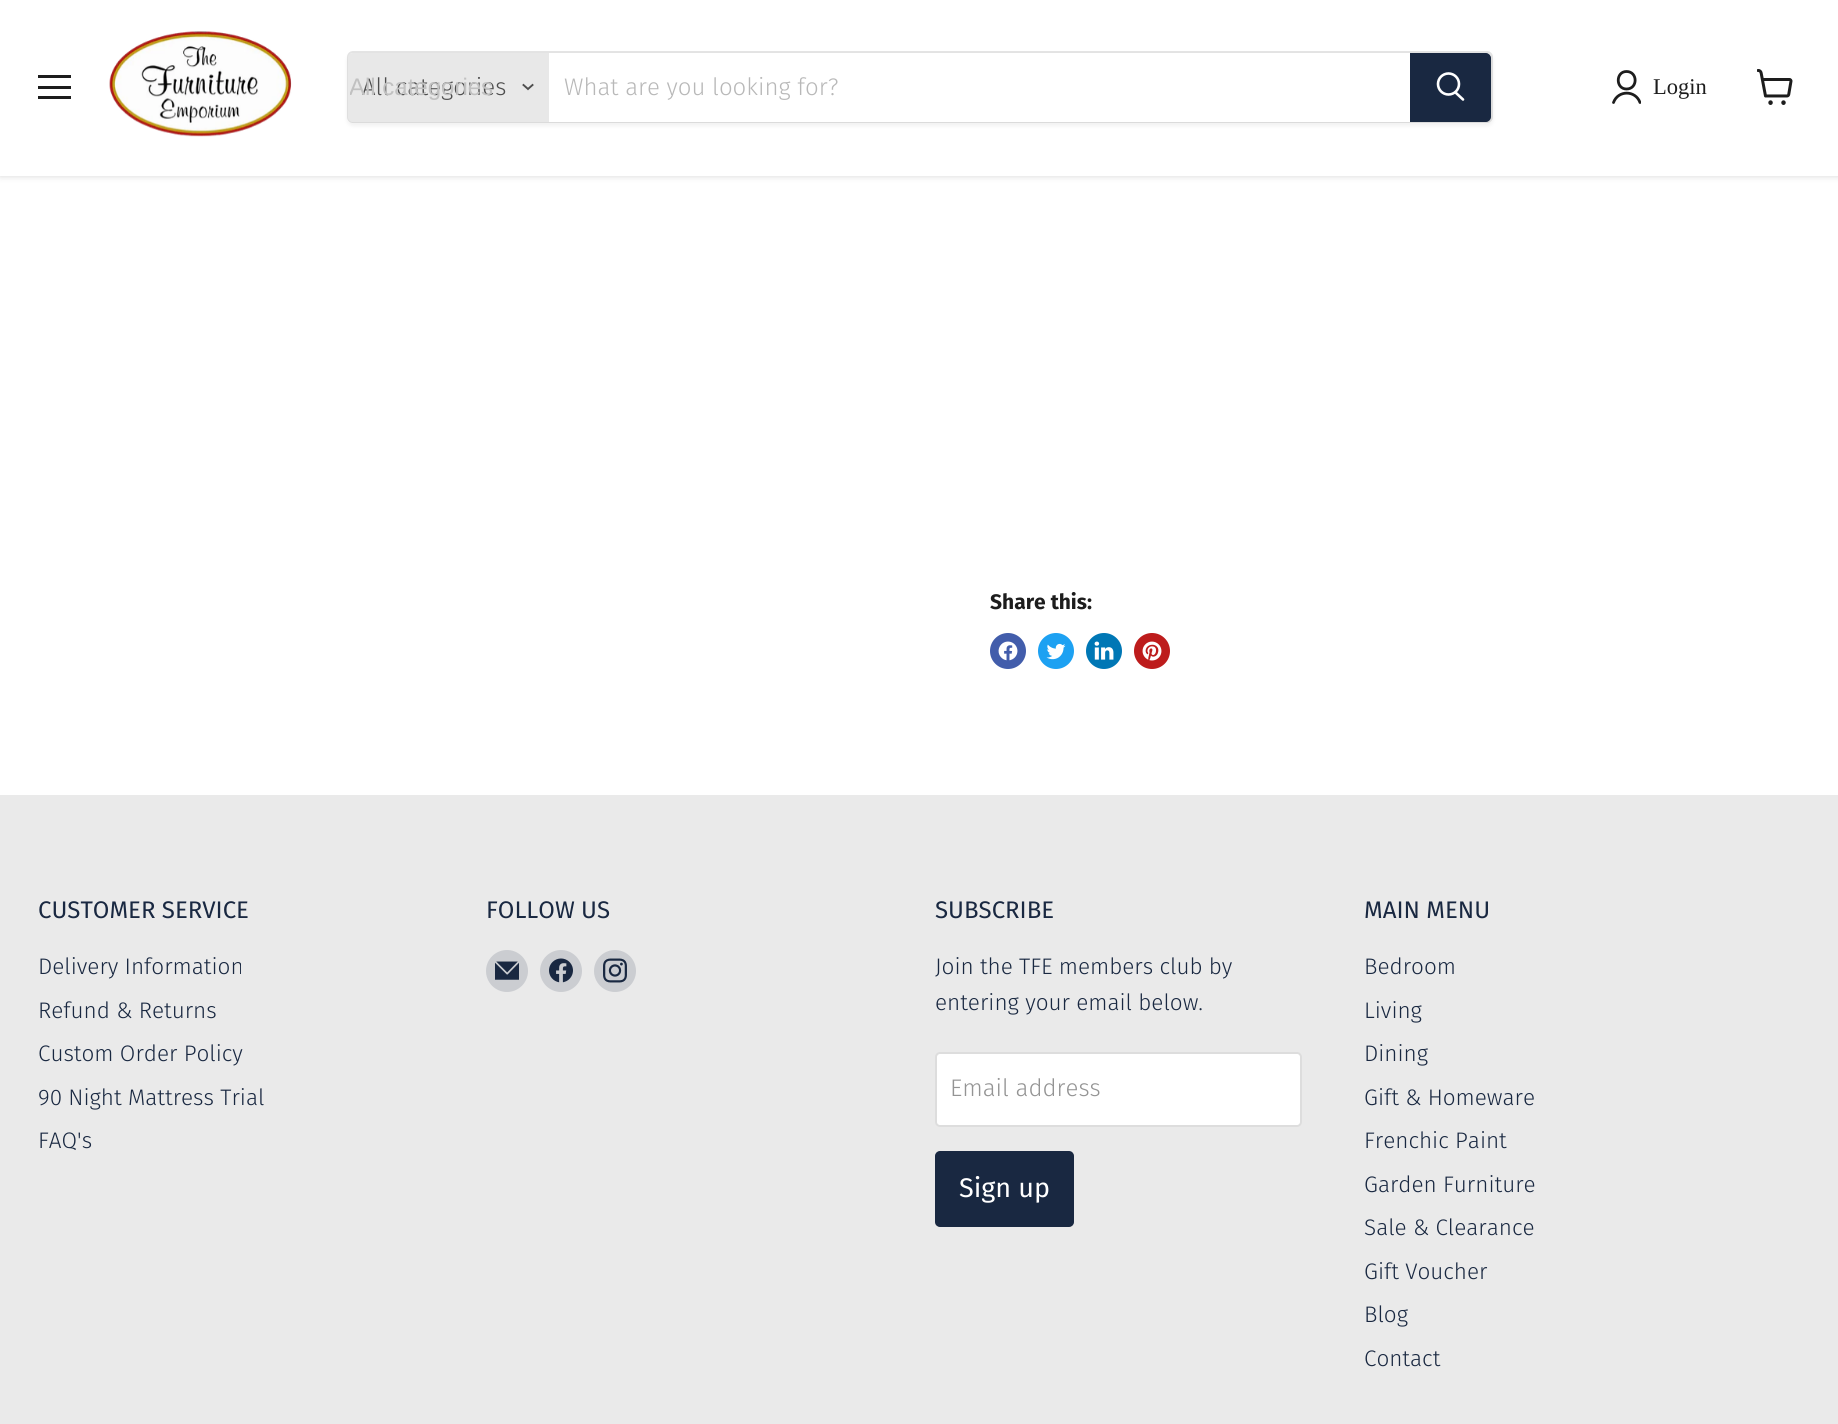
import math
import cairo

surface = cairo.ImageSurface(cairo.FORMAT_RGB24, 1838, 1424)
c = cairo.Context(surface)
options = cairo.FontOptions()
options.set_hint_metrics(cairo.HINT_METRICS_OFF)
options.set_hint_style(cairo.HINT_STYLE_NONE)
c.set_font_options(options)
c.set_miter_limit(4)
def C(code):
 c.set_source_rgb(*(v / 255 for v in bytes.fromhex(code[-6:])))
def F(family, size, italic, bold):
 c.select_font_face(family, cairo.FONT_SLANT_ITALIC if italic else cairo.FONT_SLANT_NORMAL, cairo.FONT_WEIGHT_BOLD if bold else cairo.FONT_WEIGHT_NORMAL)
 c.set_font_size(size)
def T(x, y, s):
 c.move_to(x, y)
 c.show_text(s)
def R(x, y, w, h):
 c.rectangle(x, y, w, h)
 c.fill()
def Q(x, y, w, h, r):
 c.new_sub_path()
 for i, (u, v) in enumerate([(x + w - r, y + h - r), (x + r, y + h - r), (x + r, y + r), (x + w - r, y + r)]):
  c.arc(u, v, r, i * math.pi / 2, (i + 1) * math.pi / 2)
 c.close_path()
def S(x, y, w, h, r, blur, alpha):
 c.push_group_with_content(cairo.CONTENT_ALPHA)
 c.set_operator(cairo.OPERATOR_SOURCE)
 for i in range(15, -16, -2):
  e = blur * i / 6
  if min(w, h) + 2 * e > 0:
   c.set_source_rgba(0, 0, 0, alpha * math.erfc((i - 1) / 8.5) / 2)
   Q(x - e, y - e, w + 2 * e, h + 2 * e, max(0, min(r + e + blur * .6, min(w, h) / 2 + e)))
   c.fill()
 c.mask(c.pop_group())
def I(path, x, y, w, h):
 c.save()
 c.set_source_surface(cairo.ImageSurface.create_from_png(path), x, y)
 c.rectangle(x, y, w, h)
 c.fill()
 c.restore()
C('ffffff')
c.paint()
C('808080')
S(0,2,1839,175,0,3,.25)
C('ffffff')
R(0,0,1838,176)
C('1d1d1d')
R(38,75,33,3)
R(38,86,33,3)
R(38,96,33,3)
I('1.png',109,31,183,106)
C('808080')
S(347,54,1146,72,6,2,.11)
Q(348,52,1144,70,5)
c.set_source_rgba(0.502,0.502,0.502,0.2)
c.stroke()
C('e8e8e8')
c.new_path()
c.move_to(353,53)
c.line_to(549,53)
c.line_to(549,122)
c.line_to(353,122)
c.curve_to(350,122,348,120,348,117)
c.line_to(348,58)
c.curve_to(348,55,350,53,353,53)
c.close_path()
c.fill()
F('Fira Sans Light',24,0,0)
C('4d4d4d')
T(362,95,'All categories')
c.save()
c.rectangle(350,74,198,28)
c.clip()
F('Liberation Sans',24,0,0)
C('c1c1c1')
T(349,95,'All categories')
c.restore()
c.new_path()
c.move_to(528,89)
c.line_to(532.5,85)
c.move_to(528,89)
c.line_to(523.5,85)
c.set_line_width(1.9)
c.set_line_cap(cairo.LINE_CAP_SQUARE)
c.stroke()
C('ffffff')
R(549,53,861,69)
C('b8b8b8')
T(564,95,'What are you looking for?')
C('192841')
c.new_path()
c.move_to(1411,54)
c.line_to(1486,54)
c.curve_to(1488,54,1490,56,1490,58)
c.line_to(1490,117)
c.curve_to(1490,119,1488,121,1486,121)
c.line_to(1411,121)
c.close_path()
c.fill_preserve()
c.set_line_width(2)
c.set_line_cap(cairo.LINE_CAP_BUTT)
c.stroke()
c.new_path()
c.move_to(1463,99.5)
c.line_to(1455.5,92.5)
C('ffffff')
c.set_line_width(2.6)
c.set_line_cap(cairo.LINE_CAP_ROUND)
c.stroke()
c.arc(1448.5,84,10.5,0,2 * math.pi)
c.set_line_cap(cairo.LINE_CAP_BUTT)
c.stroke()
c.new_path()
c.move_to(1626.5,89)
c.curve_to(1638,89,1638,71.5,1626.5,71.5)
c.curve_to(1615.5,71.5,1615.5,89,1626.5,89)
c.close_path()
C('1d1d1d')
c.set_line_width(2.8)
c.set_line_cap(cairo.LINE_CAP_ROUND)
c.set_line_join(cairo.LINE_JOIN_ROUND)
c.stroke()
c.save()
c.rectangle(1611,69,30,36)
c.clip()
c.new_path()
c.move_to(1640,102.5)
c.curve_to(1635.5,90,1618,90,1613.5,102.5)
c.stroke()
c.restore()
F('Liberation Serif',22.5,0,0)
T(1653,94,'Login')
I('2.png',1757,69,36,36)
F('Fira Sans',21,0,1)
T(990,609,'Share this:')
C('425dab')
c.new_path()
c.arc(1008,651,18,0,2 * math.pi)
c.fill()
I('3.png',998,641,20,20)
C('1da1f2')
c.arc(1056,651,18,0,2 * math.pi)
c.fill()
I('4.png',1046,643,20,17)
C('0077b5')
c.arc(1104,651,18,0,2 * math.pi)
c.fill()
I('5.png',1094,641,20,19)
C('bd1c1c')
c.arc(1152,651,18,0,2 * math.pi)
c.fill()
I('6.png',1142,641,20,20)
C('eaeaea')
R(0,795,1838,629)
F('Fira Sans',24,0,0)
C('192841')
T(38,918,'CUSTOMER SERVICE')
F('Fira Sans Light',22.5,0,0)
T(38,974,'Delivery Information')
T(38,1018,'Refund & Returns')
T(38,1061,'Custom Order Policy')
T(38,1105,'90 Night Mattress Trial')
T(38,1148,'FAQ\'s')
F('Fira Sans',24,0,0)
T(486,918,'FOLLOW US')
C('cbcdd1')
c.new_path()
c.arc(507,971,21,0,2 * math.pi)
c.fill()
I('7.png',495,961,24,19)
c.arc(561,971,21,0,2 * math.pi)
c.fill()
I('8.png',549,958,24,25)
c.arc(615,971,21,0,2 * math.pi)
c.fill()
I('9.png',603,958,24,25)
C('192841')
T(935,918,'SUBSCRIBE')
F('Fira Sans Light',22.5,0,0)
T(935,974,'Join the TFE members club by')
T(935,1010,'entering your email below.')
C('ffffff')
Q(936,1053,365,73,4)
c.fill_preserve()
C('dddddd')
c.set_line_width(2)
c.set_line_cap(cairo.LINE_CAP_BUTT)
c.set_line_join(cairo.LINE_JOIN_MITER)
c.stroke()
F('Fira Sans Light',24,0,0)
C('949494')
T(950,1096,'Email address')
C('192841')
Q(936,1152,137,74,4)
c.fill_preserve()
c.stroke()
F('Fira Sans',27,0,0)
C('ffffff')
T(959,1197,'Sign up')
F('Fira Sans',24,0,0)
C('192841')
T(1364,918,'MAIN MENU')
F('Fira Sans Light',22.5,0,0)
T(1364,974,'Bedroom')
T(1364,1018,'Living')
T(1364,1061,'Dining')
T(1364,1105,'Gift & Homeware')
T(1364,1148,'Frenchic Paint')
T(1364,1192,'Garden Furniture')
T(1364,1235,'Sale & Clearance')
T(1364,1279,'Gift Voucher')
T(1364,1322,'Blog')
T(1364,1366,'Contact')
surface.write_to_png('o.png')
